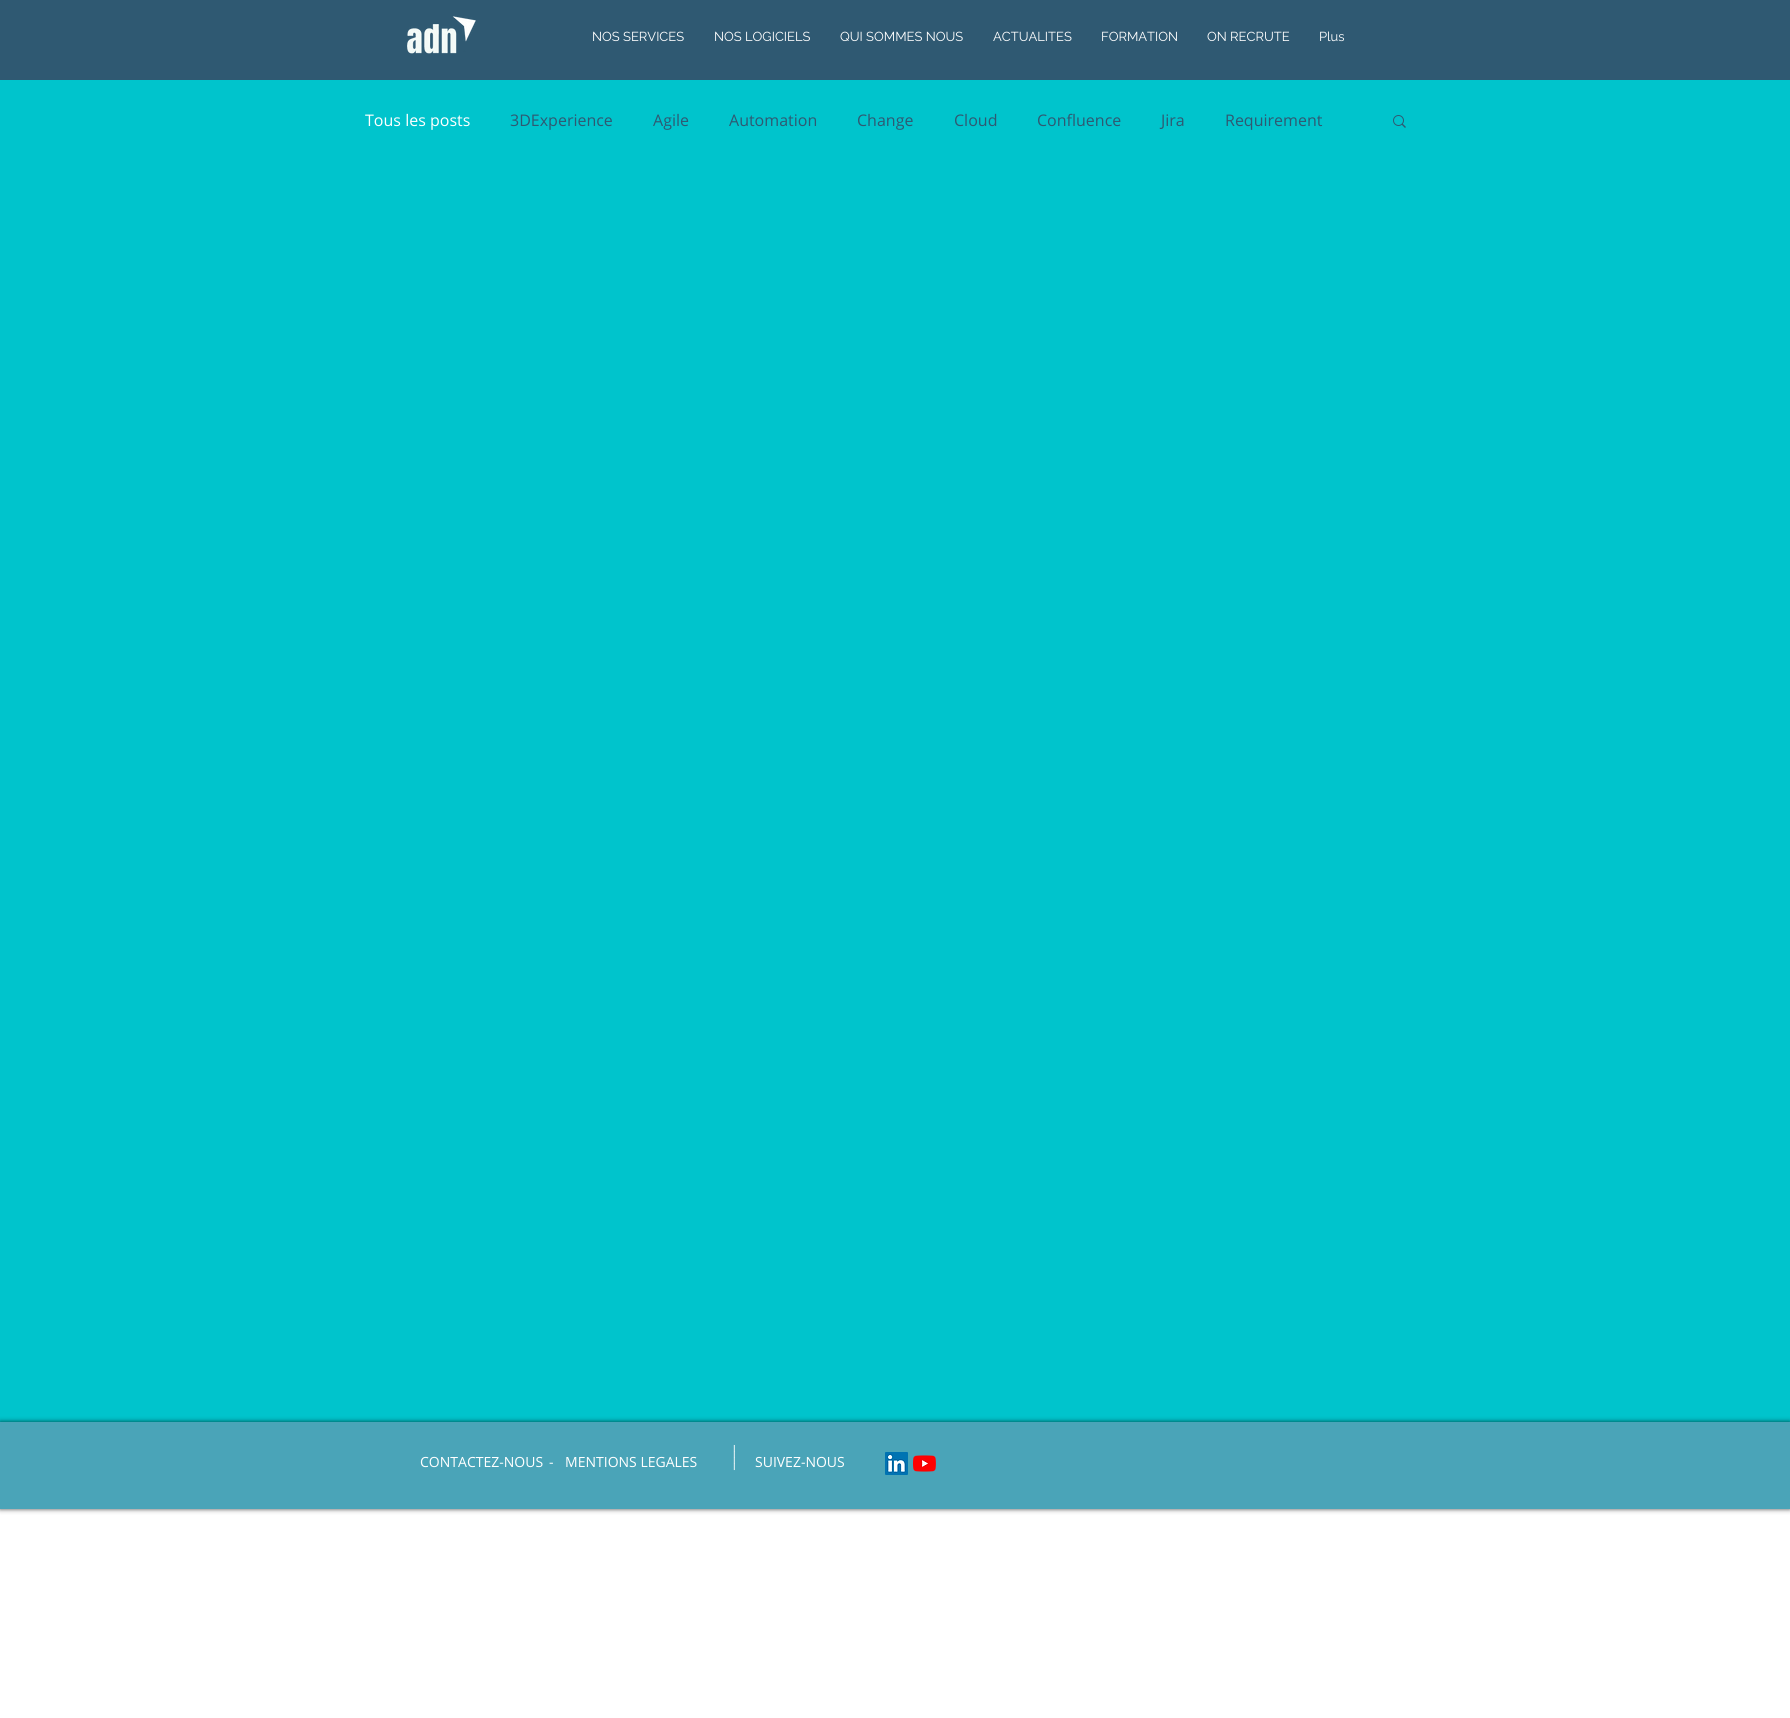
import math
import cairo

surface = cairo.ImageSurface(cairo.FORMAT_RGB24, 1790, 1718)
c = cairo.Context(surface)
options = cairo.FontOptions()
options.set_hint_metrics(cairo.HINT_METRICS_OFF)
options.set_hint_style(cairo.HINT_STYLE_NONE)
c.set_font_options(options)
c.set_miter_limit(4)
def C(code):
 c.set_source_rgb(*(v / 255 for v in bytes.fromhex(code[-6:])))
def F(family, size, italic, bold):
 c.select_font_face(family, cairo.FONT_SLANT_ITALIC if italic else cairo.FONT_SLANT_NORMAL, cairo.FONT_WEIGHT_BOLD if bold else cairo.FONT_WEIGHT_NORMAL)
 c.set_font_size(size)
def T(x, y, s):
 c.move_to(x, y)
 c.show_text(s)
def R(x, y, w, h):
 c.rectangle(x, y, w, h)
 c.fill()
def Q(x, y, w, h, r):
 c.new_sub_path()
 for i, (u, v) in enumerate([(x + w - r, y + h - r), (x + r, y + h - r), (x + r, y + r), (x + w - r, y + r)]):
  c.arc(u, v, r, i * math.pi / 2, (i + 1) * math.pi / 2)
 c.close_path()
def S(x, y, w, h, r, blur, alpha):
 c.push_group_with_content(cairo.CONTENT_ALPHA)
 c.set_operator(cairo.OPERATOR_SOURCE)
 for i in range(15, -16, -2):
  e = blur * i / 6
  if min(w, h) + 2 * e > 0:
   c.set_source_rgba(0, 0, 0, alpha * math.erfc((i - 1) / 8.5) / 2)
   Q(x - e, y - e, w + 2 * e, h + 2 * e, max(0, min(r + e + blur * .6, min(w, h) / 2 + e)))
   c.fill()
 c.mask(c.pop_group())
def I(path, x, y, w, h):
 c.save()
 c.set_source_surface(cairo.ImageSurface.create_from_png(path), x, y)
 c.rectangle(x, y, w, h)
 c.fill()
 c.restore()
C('ffffff')
c.paint()
C('2f5972')
R(0,0,1790,80)
I('1.png',407,16,69,38)
F('Raleway',13,0,0)
C('ffffff')
T(592,41,'NOS SERVICES')
T(714,41,'NOS LOGICIELS')
T(840,41,'QUI SOMMES NOUS')
T(993,41,'ACTUALITES')
T(1101,41,'FORMATION')
T(1207,41,'ON RECRUTE')
T(1319,41,'Plus')
C('00c4cc')
R(0,80,1790,1342)
F('Open Sans',16,0,0)
C('ffffff')
T(365,126,'Tous les posts')
C('2f5972')
T(510,126,'3DExperience')
T(653,126,'Agile')
T(729,126,'Automation')
T(857,126,'Change')
T(954,126,'Cloud')
T(1037,126,'Confluence')
T(1161,126,'Jira')
T(1225,126,'Requirement')
I('2.png',1393,115,13,13)
C('000000')
S(0,1422,1790,87,0,2.5,.7)
C('4aa4b8')
R(0,1422,1790,87)
F('Open Sans',14,0,0)
C('ffffff')
T(420,1467,'CONTACTEZ-NOUS')
T(549,1467,'-')
T(565,1467,'MENTIONS LEGALES')
c.save()
c.translate(736,1445)
c.rotate(90 * math.pi / 180)
T(0,0,'____')
c.restore()
T(755,1467,'SUIVEZ-NOUS')
I('3.png',885,1452,23,23)
I('4.png',913,1455,23,17)
surface.write_to_png('o.png')
